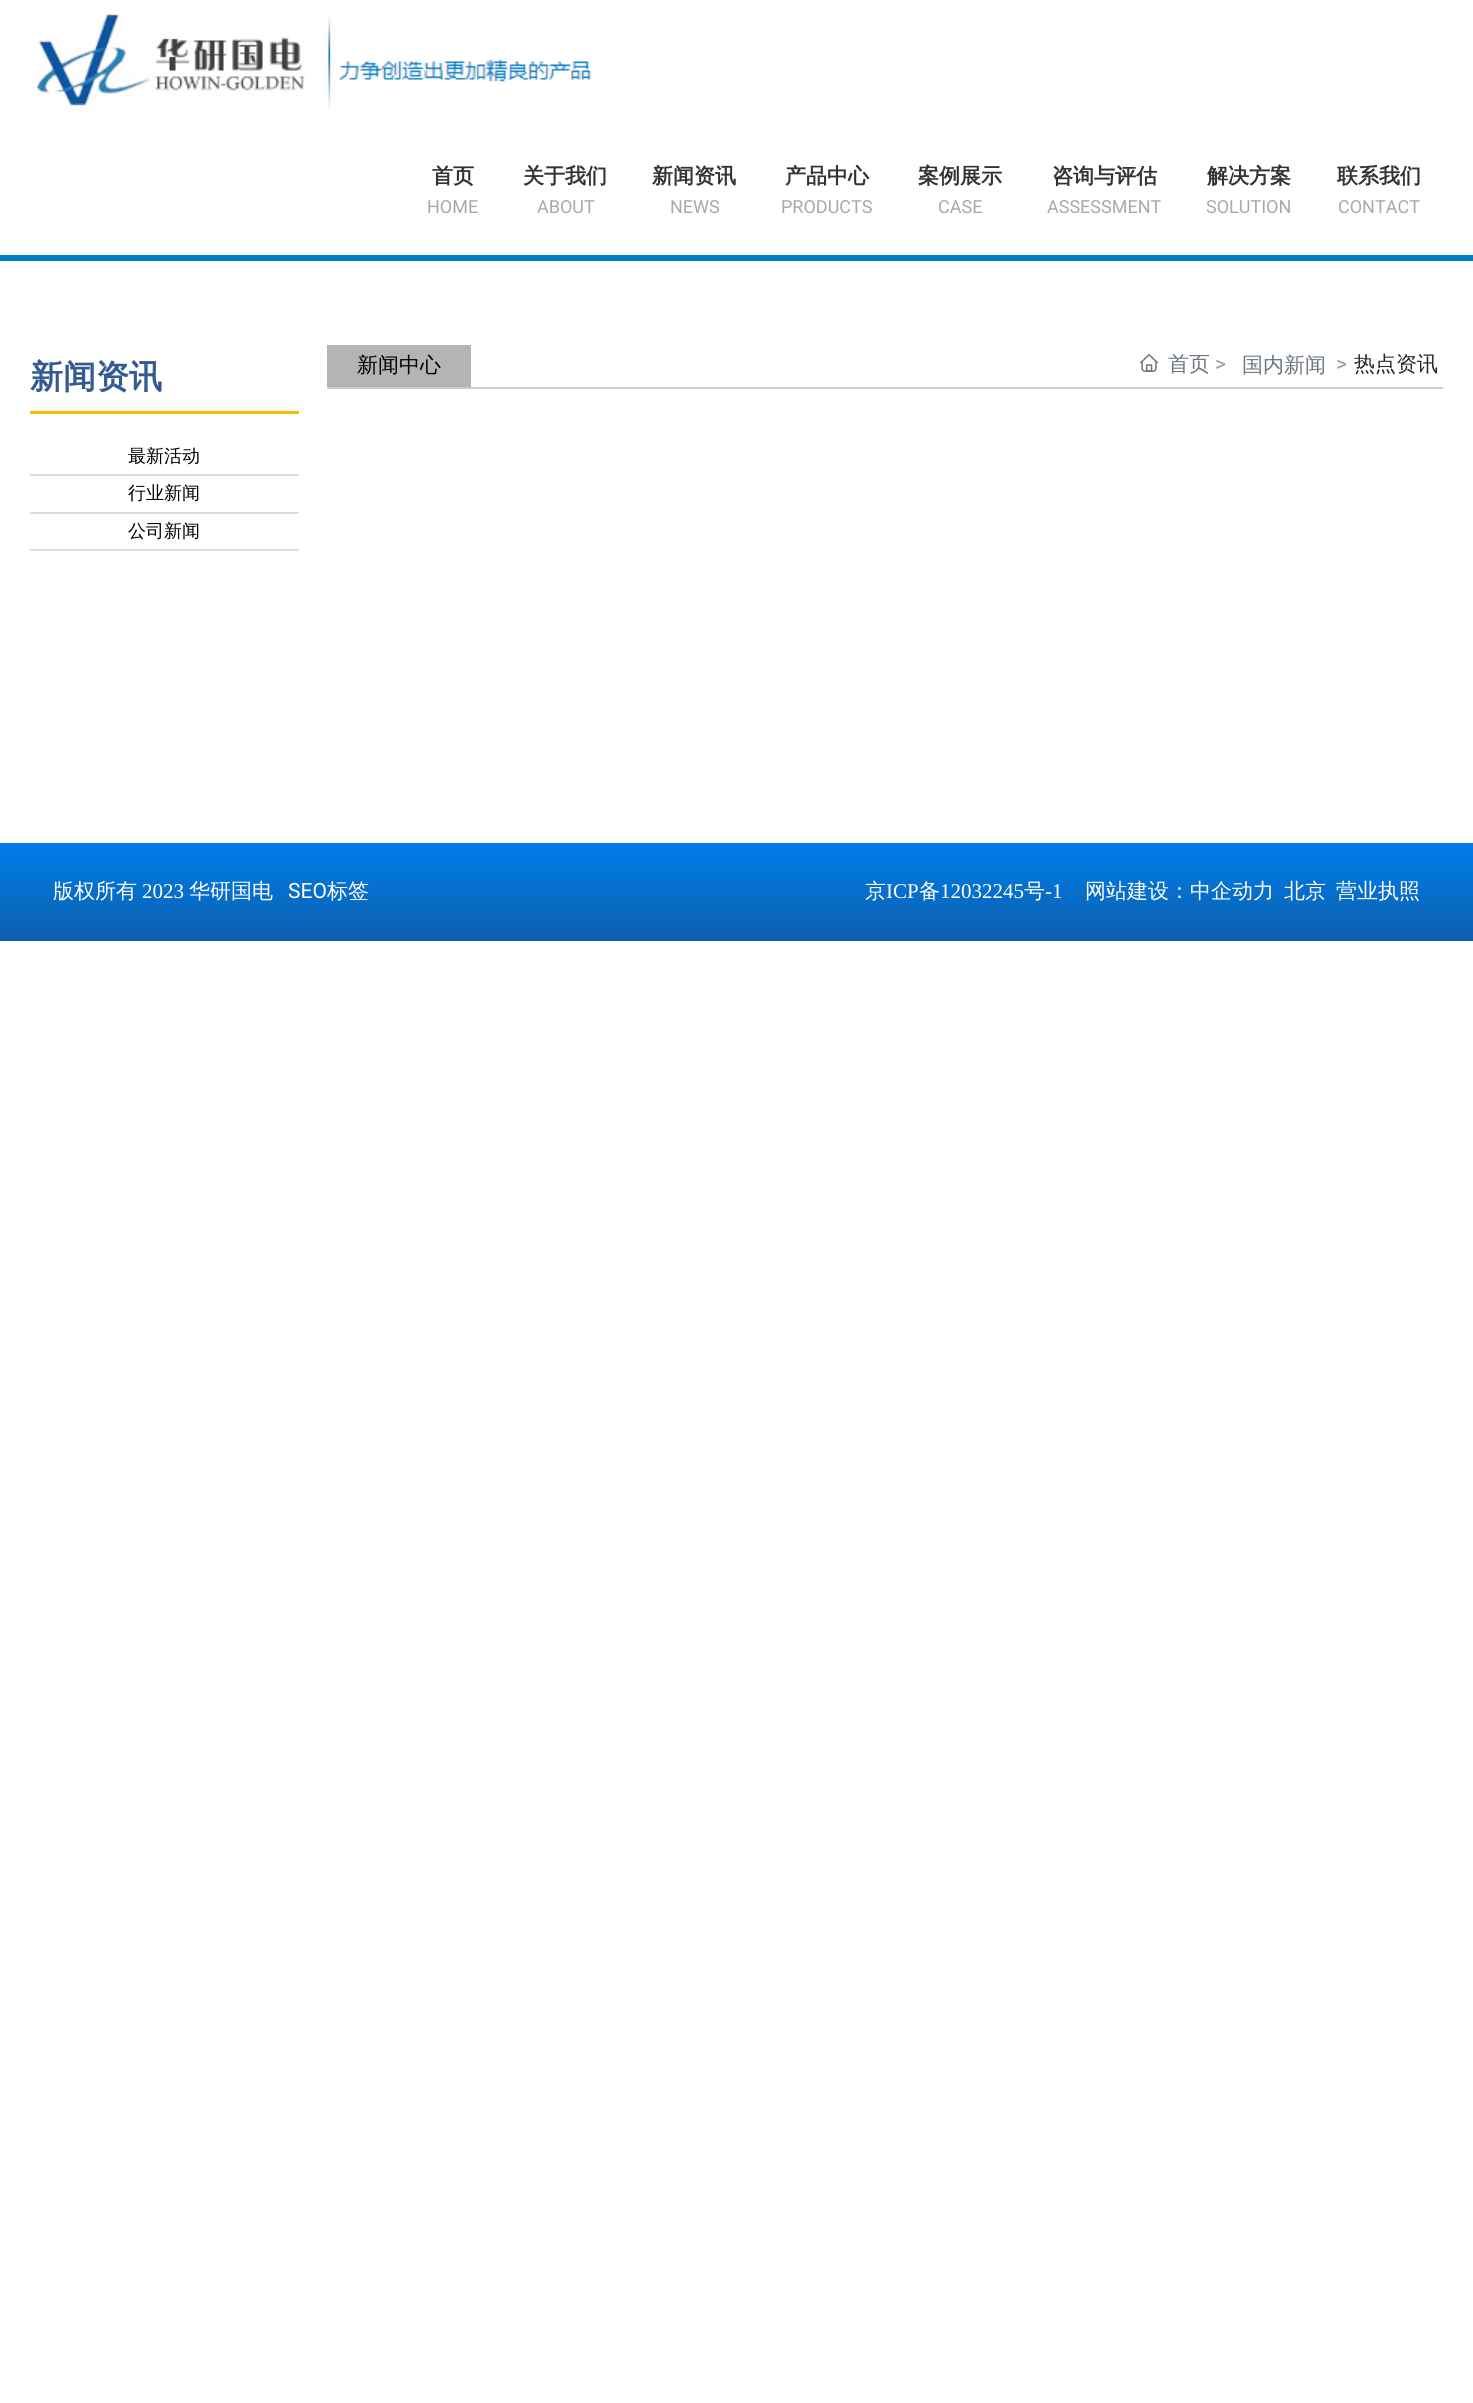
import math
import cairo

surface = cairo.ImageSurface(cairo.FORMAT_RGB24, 1473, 2403)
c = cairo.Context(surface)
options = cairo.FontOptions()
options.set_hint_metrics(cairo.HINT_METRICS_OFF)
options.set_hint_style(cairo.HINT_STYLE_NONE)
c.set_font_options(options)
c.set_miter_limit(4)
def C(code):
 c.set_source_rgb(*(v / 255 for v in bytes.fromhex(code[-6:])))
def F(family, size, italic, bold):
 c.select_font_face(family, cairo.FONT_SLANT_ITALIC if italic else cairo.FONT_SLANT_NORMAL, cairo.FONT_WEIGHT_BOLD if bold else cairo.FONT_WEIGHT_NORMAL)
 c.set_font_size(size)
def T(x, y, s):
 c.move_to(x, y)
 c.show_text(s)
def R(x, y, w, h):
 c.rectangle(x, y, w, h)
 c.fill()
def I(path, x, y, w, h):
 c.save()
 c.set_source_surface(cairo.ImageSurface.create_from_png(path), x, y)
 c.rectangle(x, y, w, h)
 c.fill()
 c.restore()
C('ffffff')
c.paint()
C('017dc5')
R(0,255,1473,6)
I('1.png',37,13,555,98)
F('WenQuanYi Zen Hei',21,0,1)
C('333333')
T(432,183,'首页')
F('Roboto',18,0,0)
C('a9a9a9')
T(427,213,'HOME')
F('WenQuanYi Zen Hei',21,0,1)
C('333333')
T(523,183,'关于我们')
F('Roboto',18,0,0)
C('a9a9a9')
T(537,213,'ABOUT')
F('WenQuanYi Zen Hei',21,0,1)
C('333333')
T(652,183,'新闻资讯')
F('Roboto',18,0,0)
C('a9a9a9')
T(670,213,'NEWS')
F('WenQuanYi Zen Hei',21,0,1)
C('333333')
T(785,183,'产品中心')
F('Roboto',18,0,0)
C('a9a9a9')
T(781,213,'PRODUCTS')
F('WenQuanYi Zen Hei',21,0,1)
C('333333')
T(918,183,'案例展示')
F('Roboto',18,0,0)
C('a9a9a9')
T(938,213,'CASE')
F('WenQuanYi Zen Hei',21,0,1)
C('333333')
T(1052,183,'咨询与评估')
F('Roboto',18,0,0)
C('a9a9a9')
T(1047,213,'ASSESSMENT')
F('WenQuanYi Zen Hei',21,0,1)
C('333333')
T(1207,183,'解决方案')
F('Roboto',18,0,0)
C('a9a9a9')
T(1206,213,'SOLUTION')
F('WenQuanYi Zen Hei',21,0,1)
C('333333')
T(1337,183,'联系我们')
F('Roboto',18,0,0)
C('a9a9a9')
T(1338,213,'CONTACT')
F('WenQuanYi Zen Hei',33,0,1)
C('335a91')
T(30,388,'新闻资讯')
C('f9be00')
R(30,411,269,3)
C('dddddd')
R(30,474,269,2)
F('WenQuanYi Zen Hei Medium',18,0,0)
C('000000')
T(128,462,'最新活动')
C('dddddd')
R(30,512,269,2)
C('000000')
T(128,499,'行业新闻')
C('dddddd')
R(30,549,269,2)
C('000000')
T(128,537,'公司新闻')
C('cccccc')
R(327,387,1116,2)
C('b5b3b6')
R(327,345,144,42)
F('WenQuanYi Zen Hei Medium',21,0,0)
C('000000')
T(357,372,'新闻中心')
I('2.png',1140,354,18,18)
C('6c757d')
T(1168,371,'首页')
F('Roboto',21,0,0)
C('999999')
T(1215,371,'>')
F('WenQuanYi Zen Hei Medium',21,0,0)
C('6c757d')
T(1242,372,'国内新闻')
F('Roboto',21,0,0)
C('999999')
T(1336,371,'>')
F('WenQuanYi Zen Hei Medium',21,0,0)
C('212529')
T(1354,371,'热点资讯')
gradient = cairo.LinearGradient(737,843,737,941)
gradient.add_color_stop_rgba(0,0,0.49,0.922,1)
gradient.add_color_stop_rgba(1,0.051,0.376,0.675,1)
c.set_source(gradient)
R(0,843,1473,98)
C('ffffff')
T(53,898,'版权所有')
F('Liberation Serif',21,0,0)
T(142,898,'2023')
F('WenQuanYi Zen Hei Medium',21,0,0)
T(189,898,'华研国电')
F('Roboto',21,0,0)
T(288,898,'SEO')
F('WenQuanYi Zen Hei Medium',21,0,0)
T(327,898,'标签')
T(865,898,'京')
F('Liberation Serif',21,0,0)
T(886,898,'ICP')
F('WenQuanYi Zen Hei Medium',21,0,0)
T(919,898,'备')
F('Liberation Serif',21,0,0)
T(940,898,'12032245')
F('WenQuanYi Zen Hei Medium',21,0,0)
T(1024,898,'号')
F('Liberation Serif',21,0,0)
T(1045,898,'-1')
F('WenQuanYi Zen Hei Medium',21,0,0)
T(1085,898,'网站建设：中企动力')
T(1284,898,'北京')
T(1336,898,'营业执照')
surface.write_to_png('o.png')
